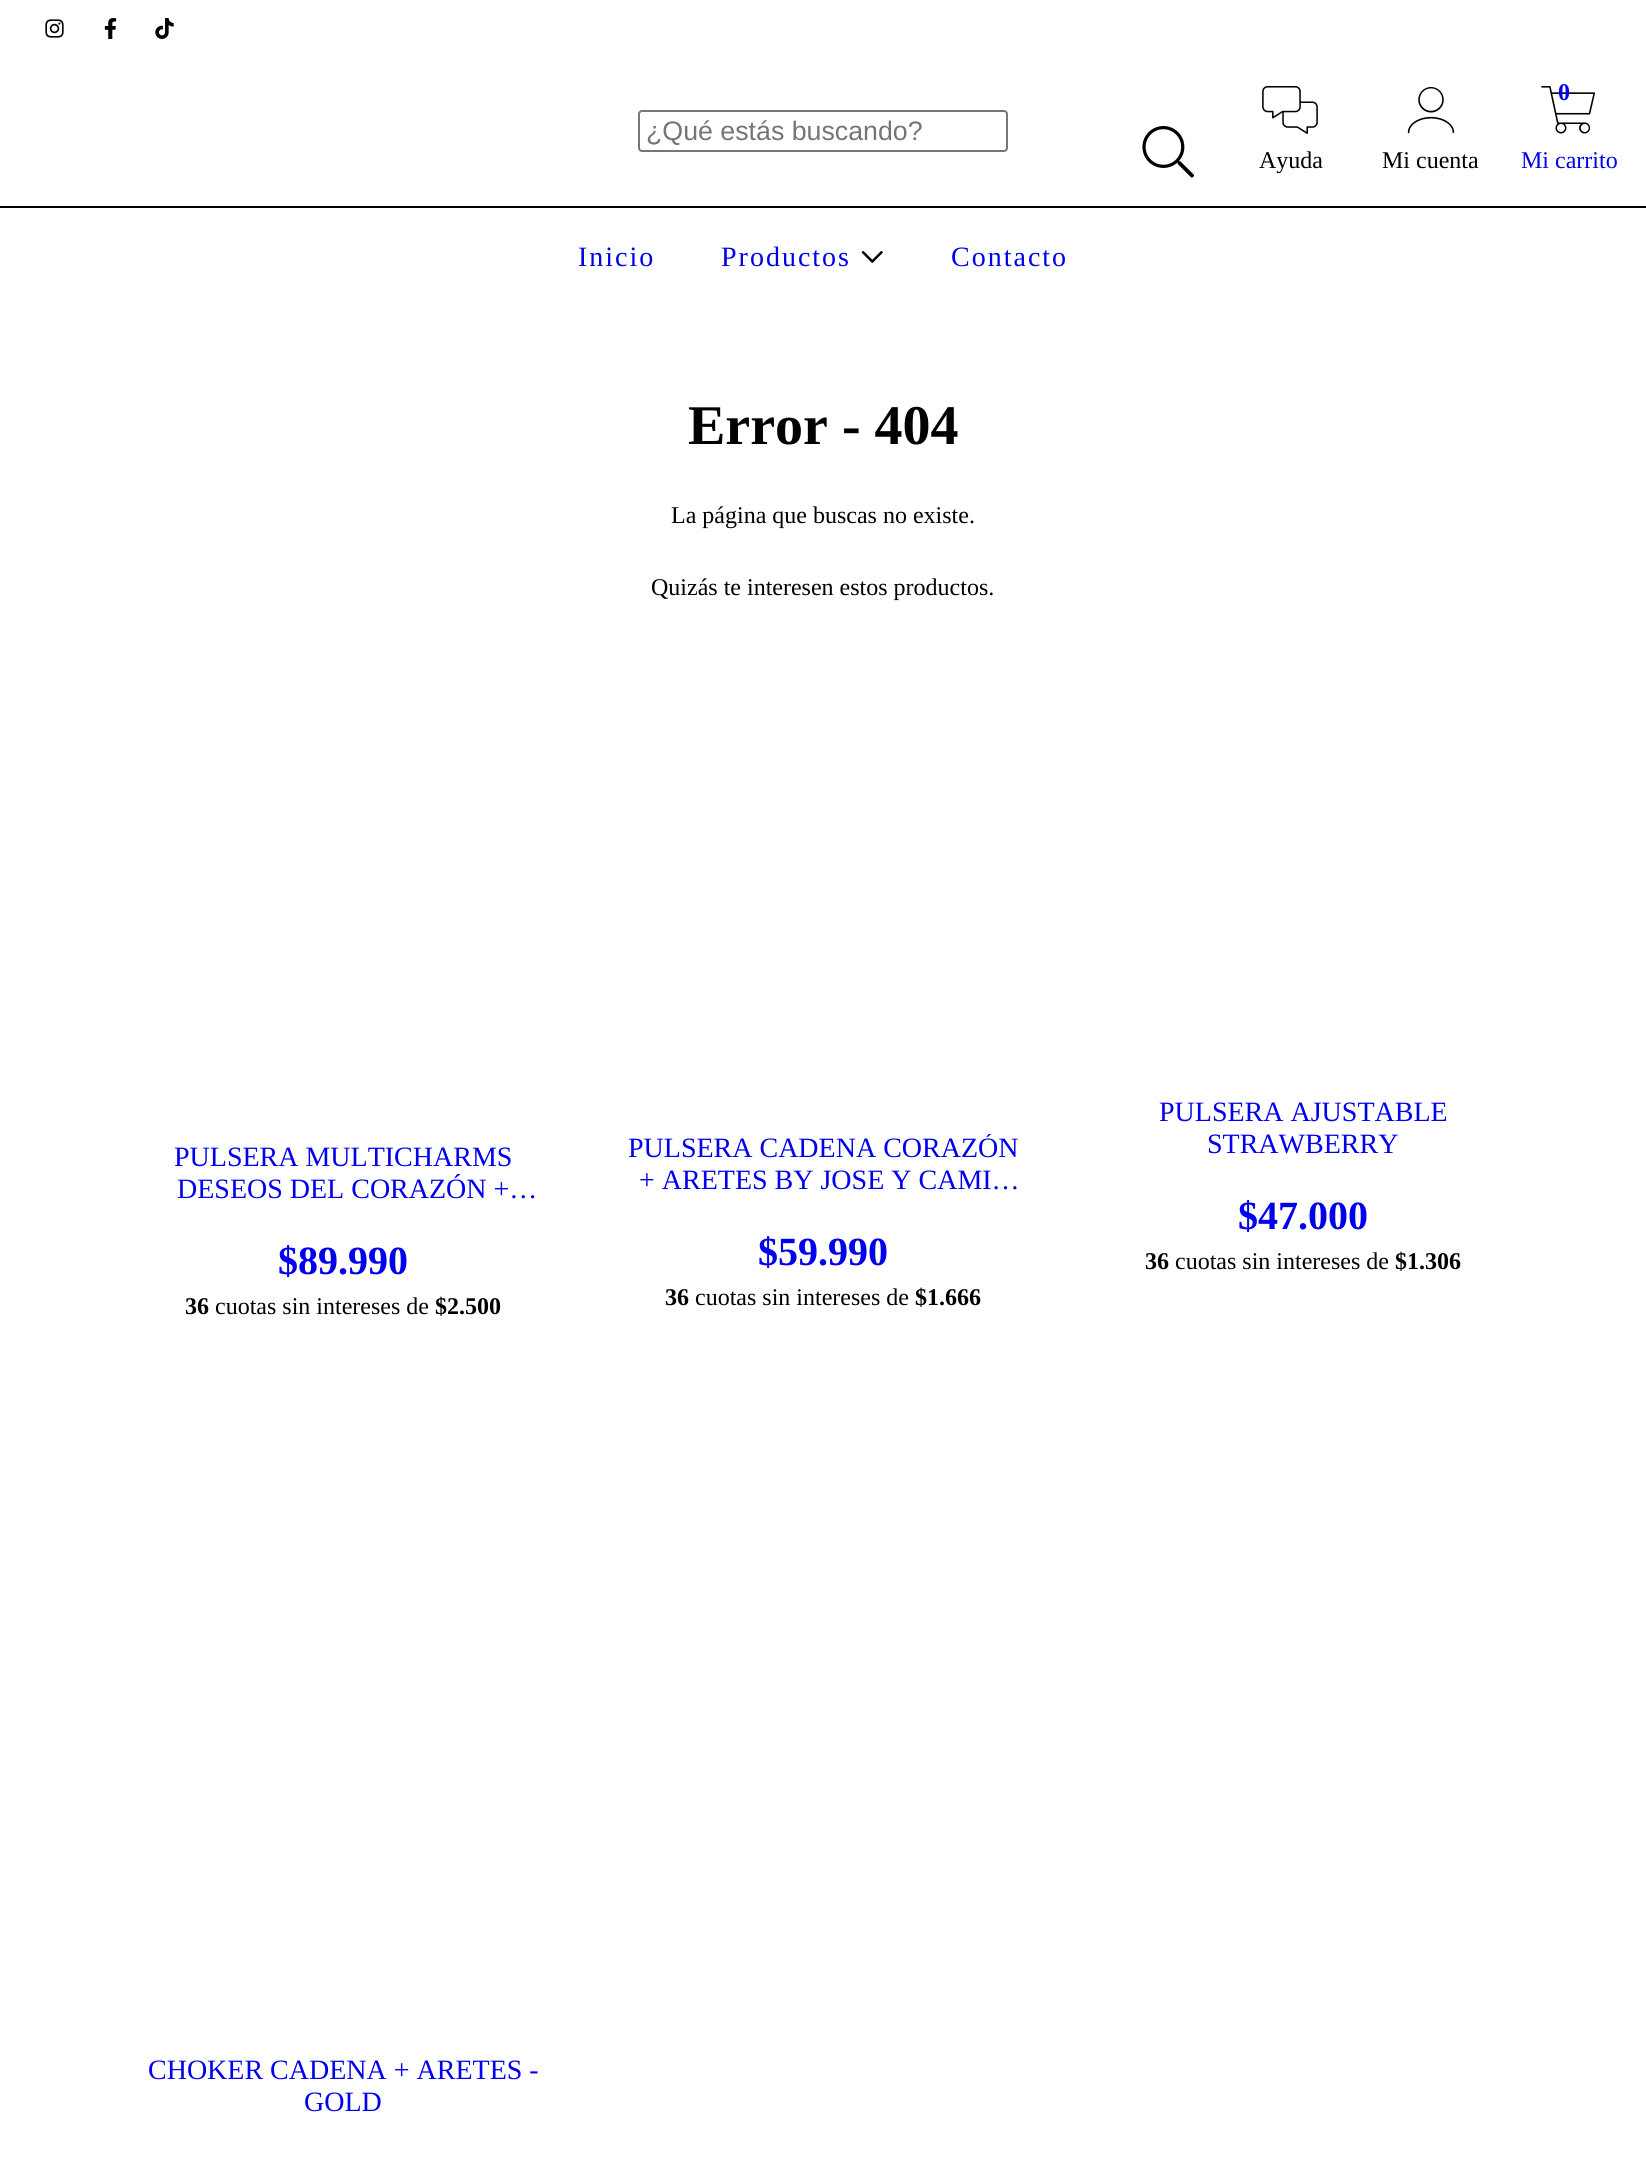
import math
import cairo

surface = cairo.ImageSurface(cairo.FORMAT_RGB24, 1646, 2158)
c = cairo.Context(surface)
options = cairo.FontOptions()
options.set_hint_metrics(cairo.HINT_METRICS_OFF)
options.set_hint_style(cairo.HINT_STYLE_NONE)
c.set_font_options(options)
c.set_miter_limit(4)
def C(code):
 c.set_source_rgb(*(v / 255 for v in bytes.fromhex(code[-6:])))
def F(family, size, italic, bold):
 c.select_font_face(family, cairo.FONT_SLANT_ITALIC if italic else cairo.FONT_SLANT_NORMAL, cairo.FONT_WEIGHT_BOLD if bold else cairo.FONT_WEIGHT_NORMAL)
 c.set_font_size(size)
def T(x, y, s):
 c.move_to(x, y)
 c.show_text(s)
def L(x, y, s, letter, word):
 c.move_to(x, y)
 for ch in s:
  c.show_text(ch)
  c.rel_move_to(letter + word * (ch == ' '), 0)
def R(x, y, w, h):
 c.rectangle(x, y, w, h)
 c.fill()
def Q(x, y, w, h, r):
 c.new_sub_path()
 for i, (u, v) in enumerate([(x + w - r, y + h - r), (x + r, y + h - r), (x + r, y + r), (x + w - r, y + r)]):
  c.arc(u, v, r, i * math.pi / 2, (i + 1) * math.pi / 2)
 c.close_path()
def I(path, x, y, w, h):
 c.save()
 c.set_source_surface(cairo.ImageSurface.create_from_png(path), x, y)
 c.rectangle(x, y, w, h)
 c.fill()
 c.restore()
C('ffffff')
c.paint()
I('1.png',45,19,19,19)
I('2.png',104,18,13,21)
I('3.png',155,18,19,21)
Q(639,111,368,40,3)
C('767676')
c.stroke()
F('Liberation Sans',26.75,0,0)
C('757575')
T(646,140,'¿Qué estás buscando?')
I('4.png',1142,126,52,52)
I('5.png',1262,86,56,48)
F('Liberation Serif',24,0,0)
C('000000')
T(1259,168,'Ayuda')
I('6.png',1407,87,48,47)
T(1382,168,'Mi cuenta')
I('7.png',1541,86,54,48)
F('Liberation Serif',24,0,1)
C('0000ee')
T(1558,100,'0')
F('Liberation Serif',24,0,0)
T(1521,168,'Mi carrito')
C('000000')
R(0,206,1646,2)
F('Liberation Serif',28,0,0)
C('0000ee')
L(578,266,'Inicio',2,0)
L(721,266,'Productos',2,0)
I('8.png',861,250,22,13)
L(951,266,'Contacto',2,0)
F('Liberation Serif',56,0,1)
C('000000')
T(688,444,'Error - 404')
F('Liberation Serif',24,0,0)
T(671,523,'La página que buscas no existe.')
T(651,595,'Quizás te interesen estos productos.')
F('Liberation Serif',28,0,0)
C('0000ee')
T(174,1166,'PULSERA MULTICHARMS')
T(177,1198,'DESEOS DEL CORAZÓN +…')
F('Liberation Serif',40,0,1)
T(278,1274,'$89.990')
F('Liberation Serif',24,0,1)
C('000000')
T(185,1314,'36')
F('Liberation Serif',24,0,0)
T(215,1314,'cuotas sin intereses de')
F('Liberation Serif',24,0,1)
T(435,1314,'$2.500')
c.save()
c.rectangle(622,1134,404,64)
c.clip()
F('Liberation Serif',28,0,0)
C('0000ee')
T(628,1157,'PULSERA CADENA CORAZÓN')
c.restore()
F('Liberation Serif',28,0,0)
C('0000ee')
T(639,1189,'+ ARETES BY JOSE Y CAMI…')
F('Liberation Serif',40,0,1)
T(758,1265,'$59.990')
F('Liberation Serif',24,0,1)
C('000000')
T(665,1305,'36')
F('Liberation Serif',24,0,0)
T(695,1305,'cuotas sin intereses de')
F('Liberation Serif',24,0,1)
T(915,1305,'$1.666')
F('Liberation Serif',28,0,0)
C('0000ee')
T(1159,1121,'PULSERA AJUSTABLE')
T(1207,1153,'STRAWBERRY')
F('Liberation Serif',40,0,1)
T(1238,1229,'$47.000')
F('Liberation Serif',24,0,1)
C('000000')
T(1145,1269,'36')
F('Liberation Serif',24,0,0)
T(1175,1269,'cuotas sin intereses de')
F('Liberation Serif',24,0,1)
T(1395,1269,'$1.306')
F('Liberation Serif',28,0,0)
C('0000ee')
T(148,2079,'CHOKER CADENA + ARETES -')
T(304,2111,'GOLD')
surface.write_to_png('o.png')
